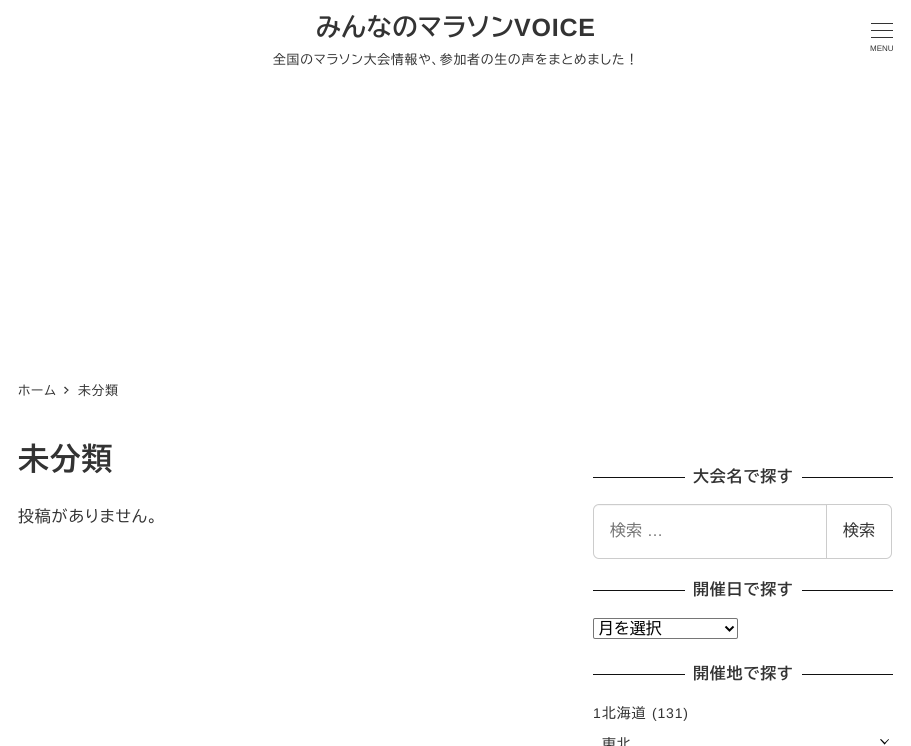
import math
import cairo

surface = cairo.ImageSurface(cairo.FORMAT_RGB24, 911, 746)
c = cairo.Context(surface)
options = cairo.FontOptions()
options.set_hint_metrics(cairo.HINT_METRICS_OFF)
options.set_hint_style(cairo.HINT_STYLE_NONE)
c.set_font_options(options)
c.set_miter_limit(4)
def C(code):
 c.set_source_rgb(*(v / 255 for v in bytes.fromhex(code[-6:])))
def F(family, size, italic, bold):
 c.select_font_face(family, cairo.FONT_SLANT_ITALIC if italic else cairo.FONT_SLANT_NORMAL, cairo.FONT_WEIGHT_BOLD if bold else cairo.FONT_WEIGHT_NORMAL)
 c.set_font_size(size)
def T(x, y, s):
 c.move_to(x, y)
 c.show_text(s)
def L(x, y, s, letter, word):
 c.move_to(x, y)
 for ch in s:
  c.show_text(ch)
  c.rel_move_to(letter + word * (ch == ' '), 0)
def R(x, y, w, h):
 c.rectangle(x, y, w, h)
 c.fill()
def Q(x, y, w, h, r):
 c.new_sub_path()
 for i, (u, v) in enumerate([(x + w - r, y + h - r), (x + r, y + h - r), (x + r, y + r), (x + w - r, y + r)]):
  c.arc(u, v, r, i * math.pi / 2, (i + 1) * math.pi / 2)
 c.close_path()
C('ffffff')
c.paint()
F('BIZ UDPGothic',25,0,1)
C('333333')
L(316,36,'みんなのマラソン',.8,0)
F('Liberation Sans',25,0,1)
L(514,36,'VOICE',.8,0)
F('BIZ UDPGothic',12.8,0,0)
L(273,64,'全国のマラソン大会情報や、参加者の生の声をまとめました！',.8,0)
R(871,23,22,1)
R(871,30,22,1)
R(871,37,22,1)
F('Liberation Sans',8,0,0)
T(870,51,'MENU')
F('BIZ UDPGothic',12.8,0,0)
L(18,395,'ホーム',.8,0)
c.new_path()
c.move_to(65,386.5)
c.line_to(68.5,390)
c.line_to(68,391)
c.line_to(64,387.5)
c.close_path()
c.fill()
c.new_path()
c.move_to(68,389.5)
c.line_to(68.5,390)
c.line_to(65,394)
c.line_to(64,393)
c.close_path()
c.fill()
L(78,395,'未分類',.8,0)
F('BIZ UDPGothic',31,0,1)
L(18,470,'未分類',.8,0)
F('BIZ UDPGothic',16,0,0)
L(18,522,'投稿がありません。',.8,0)
C('111111')
R(593,477,92,1)
F('BIZ UDPGothic',16,0,1)
C('333333')
L(693,482,'大会名で探す',.8,0)
C('111111')
R(802,477,91,1)
c.new_path()
c.move_to(826.5,504.5)
c.line_to(886,504.5)
c.curve_to(889,504.5,891.5,507,891.5,510)
c.line_to(891.5,553)
c.curve_to(891.5,556,889,558.5,886,558.5)
c.line_to(826.5,558.5)
c.close_path()
C('cccccc')
c.set_line_width(1)
c.stroke()
C('ffffff')
c.new_path()
c.move_to(599,504)
c.line_to(827,504)
c.line_to(827,559)
c.line_to(599,559)
c.curve_to(595.5,559,593,556.5,593,553)
c.line_to(593,510)
c.curve_to(593,506.5,595.5,504,599,504)
c.close_path()
c.fill()
C('f6f6f6')
c.new_path()
c.move_to(599,506)
c.line_to(826,506)
c.line_to(826,505)
c.line_to(599,505)
c.curve_to(596,505,594,508,594,511)
c.curve_to(594,508,596,506,599,506)
c.close_path()
c.fill()
c.new_path()
c.move_to(599,504.5)
c.line_to(826.5,504.5)
c.line_to(826.5,558.5)
c.line_to(599,558.5)
c.curve_to(596,558.5,593.5,556,593.5,553)
c.line_to(593.5,510)
c.curve_to(593.5,507,596,504.5,599,504.5)
c.close_path()
C('cccccc')
c.stroke()
F('BIZ UDPGothic',16,0,0)
C('757575')
T(610,536,'検索')
F('Liberation Sans',16,0,0)
T(647,536,'…')
F('BIZ UDPGothic',16,0,0)
C('333333')
T(843,536,'検索')
C('111111')
R(593,590,92,1)
F('BIZ UDPGothic',16,0,1)
C('333333')
L(693,595,'開催日で探す',.8,0)
C('111111')
R(802,590,91,1)
Q(593.5,618.5,144,20,1.5)
C('767676')
c.stroke()
c.new_path()
c.move_to(725.5,626.5)
c.line_to(729.5,630.5)
c.line_to(733.5,626.5)
C('000000')
c.set_line_width(2)
c.stroke()
F('BIZ UDPGothic',16,0,0)
T(598,634,'月を選択')
C('111111')
R(593,674,92,1)
F('BIZ UDPGothic',16,0,1)
C('333333')
L(693,679,'開催地で探す',.8,0)
C('111111')
R(802,674,91,1)
F('Liberation Sans',14,0,0)
C('333333')
L(593,718,'1',.8,0)
F('BIZ UDPGothic',14,0,0)
L(602,718,'北海道',.8,0)
F('Liberation Sans',14,0,0)
L(652,718,'(131)',.8,0)
F('BIZ UDPGothic',14,0,0)
L(602,749,'東北',.8,0)
C('000000')
c.new_path()
c.move_to(889,739.5)
c.line_to(884.5,744.5)
c.line_to(884,743.5)
c.line_to(888.5,739)
c.close_path()
c.fill()
c.new_path()
c.move_to(885.5,743.5)
c.line_to(884.5,744.5)
c.line_to(880,739.5)
c.line_to(881,739)
c.close_path()
c.fill()
surface.write_to_png('o.png')
